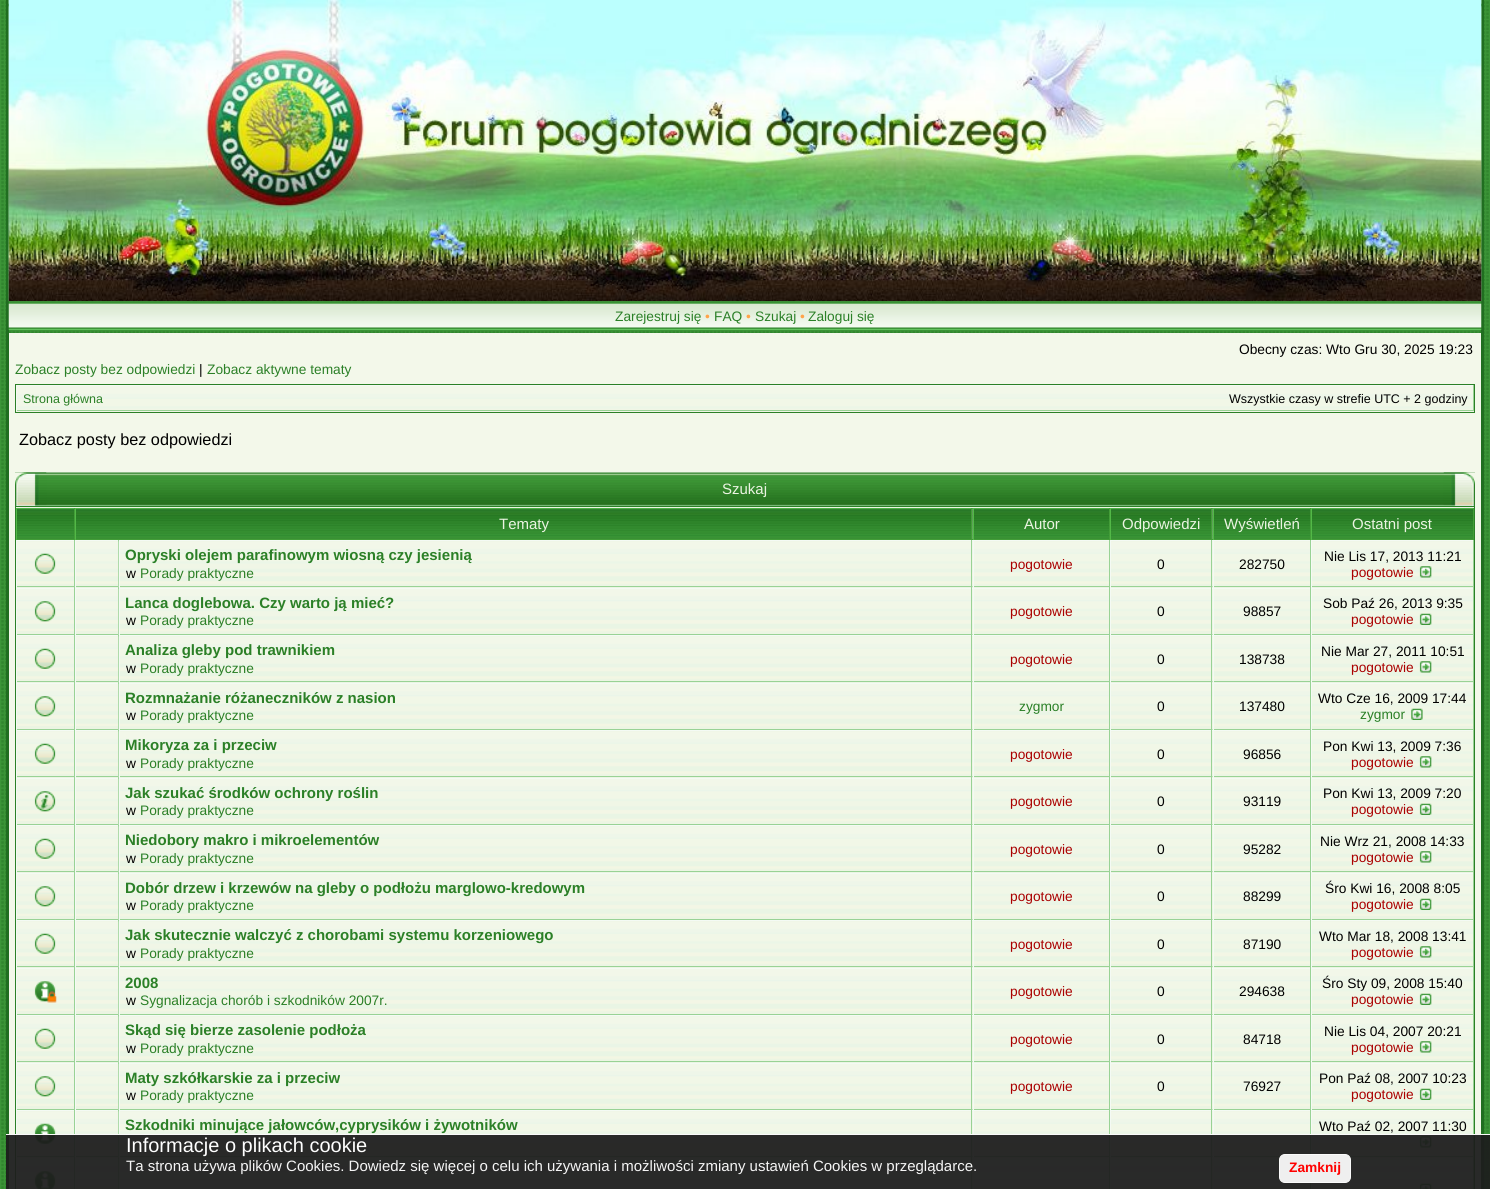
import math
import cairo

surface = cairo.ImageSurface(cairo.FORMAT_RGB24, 1490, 1189)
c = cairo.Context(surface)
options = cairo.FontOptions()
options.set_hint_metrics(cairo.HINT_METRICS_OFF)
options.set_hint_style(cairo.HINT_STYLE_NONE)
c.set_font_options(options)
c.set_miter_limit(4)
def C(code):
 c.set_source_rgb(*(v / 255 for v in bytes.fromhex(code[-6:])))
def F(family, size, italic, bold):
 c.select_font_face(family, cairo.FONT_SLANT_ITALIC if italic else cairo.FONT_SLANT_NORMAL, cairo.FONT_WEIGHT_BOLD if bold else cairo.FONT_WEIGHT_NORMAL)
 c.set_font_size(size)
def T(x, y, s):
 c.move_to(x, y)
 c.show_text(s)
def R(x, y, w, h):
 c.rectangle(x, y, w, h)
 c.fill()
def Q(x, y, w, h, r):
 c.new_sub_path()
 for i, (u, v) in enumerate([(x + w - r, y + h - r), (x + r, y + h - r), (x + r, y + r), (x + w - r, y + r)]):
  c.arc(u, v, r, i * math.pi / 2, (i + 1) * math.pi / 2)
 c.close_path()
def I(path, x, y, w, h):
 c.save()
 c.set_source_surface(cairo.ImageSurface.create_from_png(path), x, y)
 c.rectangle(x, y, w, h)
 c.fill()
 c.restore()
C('3c9538')
c.paint()
I('1.png',1,1,1488,1188)
C('206e20')
R(1481,0,3,1189)
R(6,0,3,1189)
I('2.png',8,0,1474,302)
I('3.png',8,0,1474,302)
I('4.png',8,301,1474,29)
F('Liberation Sans',13.75,0,0)
C('2b8027')
T(615,321,'Zarejestruj się')
C('ffa44a')
T(705,321,'•')
C('2b8027')
T(714,321,'FAQ')
C('ffa44a')
T(746,321,'•')
C('2b8027')
T(755,321,'Szukaj')
C('ffa44a')
T(800,321,'•')
C('2b8027')
T(808,321,'Zaloguj się')
C('f3f8ea')
R(9,333,1472,856)
C('000000')
T(1239,354,'Obecny czas: Wto Gru 30, 2025 19:23')
C('2b8027')
T(15,374,'Zobacz posty bez odpowiedzi')
C('000000')
T(199,374,'|')
C('2b8027')
T(207,374,'Zobacz aktywne tematy')
I('5.png',16,386,1458,26)
c.rectangle(15.5,384.5,1459,28)
c.set_line_width(1)
c.stroke()
I('6.png',17,386,1456,24)
C('f4faf4')
R(16,385,1458,1)
C('99d295')
R(1473,385,1,26)
R(16,410,1458,1)
C('f4faf4')
R(16,385,1,26)
F('Liberation Sans',12.5,0,0)
C('2b8027')
T(23,403,'Strona główna')
C('000000')
T(1229,403,'Wszystkie czasy w strefie UTC + 2 godziny')
F('Liberation Sans',16.25,0,0)
T(19,445,'Zobacz posty bez odpowiedzi')
I('7.png',15,472,1460,34)
I('8.png',15,472,32,34)
I('9.png',1443,472,32,34)
F('Liberation Sans',15,0,0)
C('ebf4e2')
T(722,494,'Szukaj')
R(16,507,1458,682)
I('10.png',972,509,241,30)
c.rectangle(15.5,506.5,1459,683)
C('2b8027')
c.stroke()
I('11.png',17,509,57,30)
C('4cb044')
R(16,508,957,1)
C('439d38')
R(74,508,1,32)
R(16,539,59,1)
C('52b847')
R(16,508,1,32)
I('13.png',76,509,897,30)
C('439d38')
R(971,508,1,32)
R(75,539,898,1)
I('14.png',972,508,137,32)
C('4cb044')
R(973,508,240,1)
I('15.png',1111,509,102,30)
C('439d38')
R(1211,508,1,32)
R(1110,539,103,1)
I('12.png',1212,508,98,32)
C('4cb044')
R(1213,508,261,1)
C('439d38')
R(1310,508,1,32)
R(1213,539,98,1)
C('52b847')
R(1213,508,1,32)
C('ebf4e2')
T(1224,529,'Wyświetleń')
C('52b847')
R(75,508,1,32)
C('ebf4e2')
T(499,529,'Tematy')
C('439d38')
R(1109,508,1,32)
R(973,539,137,1)
C('52b847')
R(973,508,1,32)
C('ebf4e2')
T(1024,529,'Autor')
C('52b847')
R(1110,508,1,32)
C('ebf4e2')
T(1122,529,'Odpowiedzi')
I('16.png',1312,509,161,30)
C('439d38')
R(1473,508,1,32)
R(1311,539,163,1)
C('52b847')
R(1311,508,1,32)
C('ebf4e2')
T(1352,529,'Ostatni post')
I('17.png',17,541,57,43)
C('f4faf4')
R(16,540,1458,1)
C('99d295')
R(74,540,1,48)
R(16,586,59,1)
C('f4faf4')
R(16,540,1,48)
I('18.png',34,553,22,21)
I('19.png',76,541,42,43)
C('99d295')
R(118,540,1,48)
R(75,586,44,1)
C('f4faf4')
R(75,540,1,48)
I('20.png',118,541,855,47)
C('99d295')
R(971,540,1,48)
R(119,586,854,1)
C('f4faf4')
R(119,540,1,48)
F('Liberation Sans',15,0,1)
C('2b8027')
T(125,560,'Opryski olejem parafinowym wiosną czy jesienią')
F('Liberation Sans',13.75,0,0)
C('000000')
T(126,578,'w')
C('2b8027')
T(140,578,'Porady praktyczne')
I('21.png',972,541,137,46)
C('99d295')
R(1109,540,1,48)
R(973,586,137,1)
C('f4faf4')
R(973,540,1,48)
C('aa0000')
T(1010,569,'pogotowie')
I('22.png',1111,541,102,43)
C('99d295')
R(1211,540,1,48)
R(1110,586,103,1)
C('f4faf4')
R(1110,540,1,48)
C('000000')
T(1157,569,'0')
I('23.png',1212,541,98,46)
C('99d295')
R(1310,540,1,48)
R(1213,586,98,1)
C('f4faf4')
R(1213,540,1,48)
C('000000')
T(1239,569,'282750')
I('24.png',1312,541,161,43)
C('99d295')
R(1473,540,1,48)
R(1311,586,163,1)
C('f4faf4')
R(1311,540,1,48)
C('000000')
T(1324,561,'Nie Lis 17, 2013 11:21')
C('aa0000')
T(1351,577,'pogotowie')
I('25.png',1419,566,13,12)
I('26.png',17,589,57,42)
C('f4faf4')
R(16,588,103,1)
C('99d295')
R(74,588,1,47)
R(16,634,59,1)
C('f4faf4')
R(16,588,1,47)
I('27.png',34,601,22,21)
I('28.png',76,589,42,42)
C('99d295')
R(118,588,1,47)
R(75,634,44,1)
C('f4faf4')
R(75,588,1,47)
I('29.png',118,588,855,47)
R(119,588,1355,1)
C('99d295')
R(971,588,1,47)
R(119,634,854,1)
C('f4faf4')
R(119,588,1,47)
F('Liberation Sans',15,0,1)
C('2b8027')
T(125,608,'Lanca doglebowa. Czy warto ją mieć?')
F('Liberation Sans',13.75,0,0)
C('000000')
T(126,625,'w')
C('2b8027')
T(140,625,'Porady praktyczne')
I('30.png',972,589,137,46)
C('99d295')
R(1109,588,1,47)
R(973,634,137,1)
C('f4faf4')
R(973,588,1,47)
C('aa0000')
T(1010,616,'pogotowie')
I('31.png',1111,589,102,42)
C('99d295')
R(1211,588,1,47)
R(1110,634,103,1)
C('f4faf4')
R(1110,588,1,47)
C('000000')
T(1157,616,'0')
I('32.png',1212,589,98,46)
C('99d295')
R(1310,588,1,47)
R(1213,634,98,1)
C('f4faf4')
R(1213,588,1,47)
C('000000')
T(1243,616,'98857')
I('33.png',1312,589,161,42)
C('99d295')
R(1473,588,1,47)
R(1311,634,163,1)
C('f4faf4')
R(1311,588,1,47)
C('000000')
T(1323,608,'Sob Paź 26, 2013 9:35')
C('aa0000')
T(1351,624,'pogotowie')
I('34.png',1419,613,13,12)
I('17.png',17,636,57,43)
C('f4faf4')
R(16,635,1458,1)
C('99d295')
R(74,635,1,48)
R(16,681,59,1)
C('f4faf4')
R(16,635,1,48)
I('18.png',34,648,22,21)
I('19.png',76,636,42,43)
C('99d295')
R(118,635,1,48)
R(75,681,44,1)
C('f4faf4')
R(75,635,1,48)
I('20.png',118,636,855,47)
C('99d295')
R(971,635,1,48)
R(119,681,854,1)
C('f4faf4')
R(119,635,1,48)
F('Liberation Sans',15,0,1)
C('2b8027')
T(125,655,'Analiza gleby pod trawnikiem')
F('Liberation Sans',13.75,0,0)
C('000000')
T(126,673,'w')
C('2b8027')
T(140,673,'Porady praktyczne')
I('21.png',972,636,137,46)
C('99d295')
R(1109,635,1,48)
R(973,681,137,1)
C('f4faf4')
R(973,635,1,48)
C('aa0000')
T(1010,664,'pogotowie')
I('22.png',1111,636,102,43)
C('99d295')
R(1211,635,1,48)
R(1110,681,103,1)
C('f4faf4')
R(1110,635,1,48)
C('000000')
T(1157,664,'0')
I('23.png',1212,636,98,46)
C('99d295')
R(1310,635,1,48)
R(1213,681,98,1)
C('f4faf4')
R(1213,635,1,48)
C('000000')
T(1239,664,'138738')
I('24.png',1312,636,161,43)
C('99d295')
R(1473,635,1,48)
R(1311,681,163,1)
C('f4faf4')
R(1311,635,1,48)
C('000000')
T(1321,656,'Nie Mar 27, 2011 10:51')
C('aa0000')
T(1351,672,'pogotowie')
I('25.png',1419,661,13,12)
I('35.png',17,684,57,42)
C('f4faf4')
R(16,683,103,1)
C('99d295')
R(74,683,1,47)
R(16,729,59,1)
C('f4faf4')
R(16,683,1,47)
I('36.png',34,696,22,21)
I('37.png',76,684,42,42)
C('99d295')
R(118,683,1,47)
R(75,729,44,1)
C('f4faf4')
R(75,683,1,47)
I('38.png',118,683,855,47)
R(119,683,1355,1)
C('99d295')
R(971,683,1,47)
R(119,729,854,1)
C('f4faf4')
R(119,683,1,47)
F('Liberation Sans',15,0,1)
C('2b8027')
T(125,703,'Rozmnażanie różaneczników z nasion')
F('Liberation Sans',13.75,0,0)
C('000000')
T(126,720,'w')
C('2b8027')
T(140,720,'Porady praktyczne')
I('39.png',972,684,137,46)
C('99d295')
R(1109,683,1,47)
R(973,729,137,1)
C('f4faf4')
R(973,683,1,47)
C('2b8027')
T(1019,711,'zygmor')
I('40.png',1111,684,102,42)
C('99d295')
R(1211,683,1,47)
R(1110,729,103,1)
C('f4faf4')
R(1110,683,1,47)
C('000000')
T(1157,711,'0')
I('41.png',1212,684,98,46)
C('99d295')
R(1310,683,1,47)
R(1213,729,98,1)
C('f4faf4')
R(1213,683,1,47)
C('000000')
T(1239,711,'137480')
I('42.png',1312,684,161,42)
C('99d295')
R(1473,683,1,47)
R(1311,729,163,1)
C('f4faf4')
R(1311,683,1,47)
C('000000')
T(1318,703,'Wto Cze 16, 2009 17:44')
C('2b8027')
T(1360,719,'zygmor')
I('43.png',1411,708,12,12)
I('44.png',17,731,57,43)
C('f4faf4')
R(16,730,1458,1)
C('99d295')
R(74,730,1,48)
R(16,776,59,1)
C('f4faf4')
R(16,730,1,48)
I('45.png',34,743,22,21)
I('46.png',76,731,42,43)
C('99d295')
R(118,730,1,48)
R(75,776,44,1)
C('f4faf4')
R(75,730,1,48)
I('47.png',118,731,855,47)
C('99d295')
R(971,730,1,48)
R(119,776,854,1)
C('f4faf4')
R(119,730,1,48)
F('Liberation Sans',15,0,1)
C('2b8027')
T(125,750,'Mikoryza za i przeciw')
F('Liberation Sans',13.75,0,0)
C('000000')
T(126,768,'w')
C('2b8027')
T(140,768,'Porady praktyczne')
I('48.png',972,731,137,46)
C('99d295')
R(1109,730,1,48)
R(973,776,137,1)
C('f4faf4')
R(973,730,1,48)
C('aa0000')
T(1010,759,'pogotowie')
I('49.png',1111,731,102,43)
C('99d295')
R(1211,730,1,48)
R(1110,776,103,1)
C('f4faf4')
R(1110,730,1,48)
C('000000')
T(1157,759,'0')
I('50.png',1212,731,98,46)
C('99d295')
R(1310,730,1,48)
R(1213,776,98,1)
C('f4faf4')
R(1213,730,1,48)
C('000000')
T(1243,759,'96856')
I('51.png',1312,731,161,43)
C('99d295')
R(1473,730,1,48)
R(1311,776,163,1)
C('f4faf4')
R(1311,730,1,48)
C('000000')
T(1323,751,'Pon Kwi 13, 2009 7:36')
C('aa0000')
T(1351,767,'pogotowie')
I('52.png',1419,756,13,12)
I('26.png',17,779,57,42)
C('f4faf4')
R(16,778,103,1)
C('99d295')
R(74,778,1,47)
R(16,824,59,1)
C('f4faf4')
R(16,778,1,47)
I('53.png',34,791,22,21)
I('28.png',76,779,42,42)
C('99d295')
R(118,778,1,47)
R(75,824,44,1)
C('f4faf4')
R(75,778,1,47)
I('29.png',118,778,855,47)
R(119,778,1355,1)
C('99d295')
R(971,778,1,47)
R(119,824,854,1)
C('f4faf4')
R(119,778,1,47)
F('Liberation Sans',15,0,1)
C('2b8027')
T(125,798,'Jak szukać środków ochrony roślin')
F('Liberation Sans',13.75,0,0)
C('000000')
T(126,815,'w')
C('2b8027')
T(140,815,'Porady praktyczne')
I('30.png',972,779,137,46)
C('99d295')
R(1109,778,1,47)
R(973,824,137,1)
C('f4faf4')
R(973,778,1,47)
C('aa0000')
T(1010,806,'pogotowie')
I('31.png',1111,779,102,42)
C('99d295')
R(1211,778,1,47)
R(1110,824,103,1)
C('f4faf4')
R(1110,778,1,47)
C('000000')
T(1157,806,'0')
I('32.png',1212,779,98,46)
C('99d295')
R(1310,778,1,47)
R(1213,824,98,1)
C('f4faf4')
R(1213,778,1,47)
C('000000')
T(1243,806,'93119')
I('33.png',1312,779,161,42)
C('99d295')
R(1473,778,1,47)
R(1311,824,163,1)
C('f4faf4')
R(1311,778,1,47)
C('000000')
T(1323,798,'Pon Kwi 13, 2009 7:20')
C('aa0000')
T(1351,814,'pogotowie')
I('34.png',1419,803,13,12)
I('54.png',17,826,57,43)
C('f4faf4')
R(16,825,1458,1)
C('99d295')
R(74,825,1,48)
R(16,871,59,1)
C('f4faf4')
R(16,825,1,48)
I('18.png',34,838,22,21)
I('55.png',76,826,42,43)
C('99d295')
R(118,825,1,48)
R(75,871,44,1)
C('f4faf4')
R(75,825,1,48)
I('20.png',118,826,855,47)
C('99d295')
R(971,825,1,48)
R(119,871,854,1)
C('f4faf4')
R(119,825,1,48)
F('Liberation Sans',15,0,1)
C('2b8027')
T(125,845,'Niedobory makro i mikroelementów')
F('Liberation Sans',13.75,0,0)
C('000000')
T(126,863,'w')
C('2b8027')
T(140,863,'Porady praktyczne')
I('56.png',972,826,137,46)
C('99d295')
R(1109,825,1,48)
R(973,871,137,1)
C('f4faf4')
R(973,825,1,48)
C('aa0000')
T(1010,854,'pogotowie')
I('57.png',1111,826,102,43)
C('99d295')
R(1211,825,1,48)
R(1110,871,103,1)
C('f4faf4')
R(1110,825,1,48)
C('000000')
T(1157,854,'0')
I('58.png',1212,826,98,46)
C('99d295')
R(1310,825,1,48)
R(1213,871,98,1)
C('f4faf4')
R(1213,825,1,48)
C('000000')
T(1243,854,'95282')
I('59.png',1312,826,161,43)
C('99d295')
R(1473,825,1,48)
R(1311,871,163,1)
C('f4faf4')
R(1311,825,1,48)
C('000000')
T(1320,846,'Nie Wrz 21, 2008 14:33')
C('aa0000')
T(1351,862,'pogotowie')
I('25.png',1419,851,13,12)
I('26.png',17,874,57,42)
C('f4faf4')
R(16,873,103,1)
C('99d295')
R(74,873,1,47)
R(16,919,59,1)
C('f4faf4')
R(16,873,1,47)
I('27.png',34,886,22,21)
I('28.png',76,874,42,42)
C('99d295')
R(118,873,1,47)
R(75,919,44,1)
C('f4faf4')
R(75,873,1,47)
I('29.png',118,873,855,47)
R(119,873,1355,1)
C('99d295')
R(971,873,1,47)
R(119,919,854,1)
C('f4faf4')
R(119,873,1,47)
F('Liberation Sans',15,0,1)
C('2b8027')
T(125,893,'Dobór drzew i krzewów na gleby o podłożu marglowo-kredowym')
F('Liberation Sans',13.75,0,0)
C('000000')
T(126,910,'w')
C('2b8027')
T(140,910,'Porady praktyczne')
I('30.png',972,874,137,46)
C('99d295')
R(1109,873,1,47)
R(973,919,137,1)
C('f4faf4')
R(973,873,1,47)
C('aa0000')
T(1010,901,'pogotowie')
I('31.png',1111,874,102,42)
C('99d295')
R(1211,873,1,47)
R(1110,919,103,1)
C('f4faf4')
R(1110,873,1,47)
C('000000')
T(1157,901,'0')
I('32.png',1212,874,98,46)
C('99d295')
R(1310,873,1,47)
R(1213,919,98,1)
C('f4faf4')
R(1213,873,1,47)
C('000000')
T(1243,901,'88299')
I('33.png',1312,874,161,42)
C('99d295')
R(1473,873,1,47)
R(1311,919,163,1)
C('f4faf4')
R(1311,873,1,47)
C('000000')
T(1325,893,'Śro Kwi 16, 2008 8:05')
C('aa0000')
T(1351,909,'pogotowie')
I('34.png',1419,898,13,12)
I('17.png',17,921,57,43)
C('f4faf4')
R(16,920,1458,1)
C('99d295')
R(74,920,1,48)
R(16,966,59,1)
C('f4faf4')
R(16,920,1,48)
I('18.png',34,933,22,21)
I('19.png',76,921,42,43)
C('99d295')
R(118,920,1,48)
R(75,966,44,1)
C('f4faf4')
R(75,920,1,48)
I('20.png',118,921,855,47)
C('99d295')
R(971,920,1,48)
R(119,966,854,1)
C('f4faf4')
R(119,920,1,48)
F('Liberation Sans',15,0,1)
C('2b8027')
T(125,940,'Jak skutecznie walczyć z chorobami systemu korzeniowego')
F('Liberation Sans',13.75,0,0)
C('000000')
T(126,958,'w')
C('2b8027')
T(140,958,'Porady praktyczne')
I('21.png',972,921,137,46)
C('99d295')
R(1109,920,1,48)
R(973,966,137,1)
C('f4faf4')
R(973,920,1,48)
C('aa0000')
T(1010,949,'pogotowie')
I('22.png',1111,921,102,43)
C('99d295')
R(1211,920,1,48)
R(1110,966,103,1)
C('f4faf4')
R(1110,920,1,48)
C('000000')
T(1157,949,'0')
I('23.png',1212,921,98,46)
C('99d295')
R(1310,920,1,48)
R(1213,966,98,1)
C('f4faf4')
R(1213,920,1,48)
C('000000')
T(1243,949,'87190')
I('24.png',1312,921,161,43)
C('99d295')
R(1473,920,1,48)
R(1311,966,163,1)
C('f4faf4')
R(1311,920,1,48)
C('000000')
T(1319,941,'Wto Mar 18, 2008 13:41')
C('aa0000')
T(1351,957,'pogotowie')
I('25.png',1419,946,13,12)
I('60.png',17,969,57,42)
C('f4faf4')
R(16,968,103,1)
C('99d295')
R(74,968,1,47)
R(16,1014,59,1)
C('f4faf4')
R(16,968,1,47)
I('61.png',34,981,23,22)
I('62.png',76,969,42,42)
C('99d295')
R(118,968,1,47)
R(75,1014,44,1)
C('f4faf4')
R(75,968,1,47)
I('63.png',118,968,855,47)
R(119,968,1355,1)
C('99d295')
R(971,968,1,47)
R(119,1014,854,1)
C('f4faf4')
R(119,968,1,47)
F('Liberation Sans',15,0,1)
C('2b8027')
T(125,988,'2008')
F('Liberation Sans',13.75,0,0)
C('000000')
T(126,1005,'w')
C('2b8027')
T(140,1005,'Sygnalizacja chorób i szkodników 2007r.')
I('64.png',972,969,137,46)
C('99d295')
R(1109,968,1,47)
R(973,1014,137,1)
C('f4faf4')
R(973,968,1,47)
C('aa0000')
T(1010,996,'pogotowie')
I('65.png',1111,969,102,42)
C('99d295')
R(1211,968,1,47)
R(1110,1014,103,1)
C('f4faf4')
R(1110,968,1,47)
C('000000')
T(1157,996,'0')
I('66.png',1212,969,98,46)
C('99d295')
R(1310,968,1,47)
R(1213,1014,98,1)
C('f4faf4')
R(1213,968,1,47)
C('000000')
T(1239,996,'294638')
I('67.png',1312,969,161,42)
C('99d295')
R(1473,968,1,47)
R(1311,1014,163,1)
C('f4faf4')
R(1311,968,1,47)
C('000000')
T(1322,988,'Śro Sty 09, 2008 15:40')
C('aa0000')
T(1351,1004,'pogotowie')
I('34.png',1419,993,13,12)
I('17.png',17,1016,57,43)
C('f4faf4')
R(16,1015,1458,1)
C('99d295')
R(74,1015,1,48)
R(16,1061,59,1)
C('f4faf4')
R(16,1015,1,48)
I('18.png',34,1028,22,21)
I('19.png',76,1016,42,43)
C('99d295')
R(118,1015,1,48)
R(75,1061,44,1)
C('f4faf4')
R(75,1015,1,48)
I('20.png',118,1016,855,47)
C('99d295')
R(971,1015,1,48)
R(119,1061,854,1)
C('f4faf4')
R(119,1015,1,48)
F('Liberation Sans',15,0,1)
C('2b8027')
T(125,1035,'Skąd się bierze zasolenie podłoża')
F('Liberation Sans',13.75,0,0)
C('000000')
T(126,1053,'w')
C('2b8027')
T(140,1053,'Porady praktyczne')
I('21.png',972,1016,137,46)
C('99d295')
R(1109,1015,1,48)
R(973,1061,137,1)
C('f4faf4')
R(973,1015,1,48)
C('aa0000')
T(1010,1044,'pogotowie')
I('22.png',1111,1016,102,43)
C('99d295')
R(1211,1015,1,48)
R(1110,1061,103,1)
C('f4faf4')
R(1110,1015,1,48)
C('000000')
T(1157,1044,'0')
I('23.png',1212,1016,98,46)
C('99d295')
R(1310,1015,1,48)
R(1213,1061,98,1)
C('f4faf4')
R(1213,1015,1,48)
C('000000')
T(1243,1044,'84718')
I('24.png',1312,1016,161,43)
C('99d295')
R(1473,1015,1,48)
R(1311,1061,163,1)
C('f4faf4')
R(1311,1015,1,48)
C('000000')
T(1324,1036,'Nie Lis 04, 2007 20:21')
C('aa0000')
T(1351,1052,'pogotowie')
I('25.png',1419,1041,13,12)
I('26.png',17,1064,57,42)
C('f4faf4')
R(16,1063,103,1)
C('99d295')
R(74,1063,1,47)
R(16,1109,59,1)
C('f4faf4')
R(16,1063,1,47)
I('27.png',34,1076,22,21)
I('28.png',76,1064,42,42)
C('99d295')
R(118,1063,1,47)
R(75,1109,44,1)
C('f4faf4')
R(75,1063,1,47)
I('29.png',118,1063,855,47)
R(119,1063,1355,1)
C('99d295')
R(971,1063,1,47)
R(119,1109,854,1)
C('f4faf4')
R(119,1063,1,47)
F('Liberation Sans',15,0,1)
C('2b8027')
T(125,1083,'Maty szkółkarskie za i przeciw')
F('Liberation Sans',13.75,0,0)
C('000000')
T(126,1100,'w')
C('2b8027')
T(140,1100,'Porady praktyczne')
I('30.png',972,1064,137,46)
C('99d295')
R(1109,1063,1,47)
R(973,1109,137,1)
C('f4faf4')
R(973,1063,1,47)
C('aa0000')
T(1010,1091,'pogotowie')
I('31.png',1111,1064,102,42)
C('99d295')
R(1211,1063,1,47)
R(1110,1109,103,1)
C('f4faf4')
R(1110,1063,1,47)
C('000000')
T(1157,1091,'0')
I('32.png',1212,1064,98,46)
C('99d295')
R(1310,1063,1,47)
R(1213,1109,98,1)
C('f4faf4')
R(1213,1063,1,47)
C('000000')
T(1243,1091,'76927')
I('33.png',1312,1064,161,42)
C('99d295')
R(1473,1063,1,47)
R(1311,1109,163,1)
C('f4faf4')
R(1311,1063,1,47)
C('000000')
T(1319,1083,'Pon Paź 08, 2007 10:23')
C('aa0000')
T(1351,1099,'pogotowie')
I('34.png',1419,1088,13,12)
I('44.png',17,1111,57,43)
C('f4faf4')
R(16,1110,1458,1)
C('99d295')
R(74,1110,1,48)
R(16,1156,59,1)
C('f4faf4')
R(16,1110,1,48)
I('68.png',34,1123,22,21)
I('46.png',76,1111,42,43)
C('99d295')
R(118,1110,1,48)
R(75,1156,44,1)
C('f4faf4')
R(75,1110,1,48)
I('47.png',118,1111,855,47)
C('99d295')
R(971,1110,1,48)
R(119,1156,854,1)
C('f4faf4')
R(119,1110,1,48)
F('Liberation Sans',15,0,1)
C('2b8027')
T(125,1130,'Szkodniki minujące jałowców,cyprysików i żywotników')
I('48.png',972,1111,137,46)
C('99d295')
R(1109,1110,1,48)
R(973,1156,137,1)
C('f4faf4')
R(973,1110,1,48)
I('49.png',1111,1111,102,43)
C('99d295')
R(1211,1110,1,48)
R(1110,1156,103,1)
C('f4faf4')
R(1110,1110,1,48)
I('50.png',1212,1111,98,46)
C('99d295')
R(1310,1110,1,48)
R(1213,1156,68,1)
C('f4faf4')
R(1213,1110,1,48)
I('51.png',1312,1111,161,43)
C('99d295')
R(1473,1110,1,48)
R(1349,1156,125,1)
C('f4faf4')
R(1311,1110,1,48)
F('Liberation Sans',13.75,0,0)
C('000000')
T(1319,1131,'Wto Paź 02, 2007 11:30')
I('52.png',1419,1136,13,12)
I('69.png',17,1159,57,27)
C('f4faf4')
R(16,1158,103,1)
C('99d295')
R(74,1158,1,31)
C('f4faf4')
R(16,1158,1,31)
I('70.png',34,1171,22,18)
I('71.png',76,1159,42,27)
C('99d295')
R(118,1158,1,31)
C('f4faf4')
R(75,1158,1,31)
I('72.png',118,1158,853,31)
R(119,1158,1161,1)
C('99d295')
R(971,1158,1,31)
C('f4faf4')
R(119,1158,1,31)
I('73.png',974,1159,135,27)
C('99d295')
R(1109,1158,1,31)
C('f4faf4')
R(973,1158,1,31)
I('74.png',1111,1159,100,27)
C('99d295')
R(1211,1158,1,31)
C('f4faf4')
R(1110,1158,1,31)
I('75.png',1214,1159,96,27)
C('99d295')
R(1310,1183,1,6)
C('f4faf4')
R(1213,1158,1,31)
I('76.png',1312,1159,161,27)
R(1350,1158,124,1)
C('99d295')
R(1473,1158,1,31)
C('f4faf4')
R(1311,1183,1,6)
I('77.png',1419,1183,13,6)
c.set_source_rgba(0.114,0.114,0.114,0.94)
R(6,1135,1484,54)
C('fafafa')
R(6,1134,1484,1)
F('Liberation Sans',20,0,0)
C('ffffff')
T(126,1152,'Informacje o plikach cookie')
F('Liberation Sans',15,0,0)
C('f5f5f5')
T(126,1171,'Ta strona używa plików Cookies. Dowiedz się więcej o celu ich używania i możliwości zmiany ustawień Cookies w przeglądarce.')
C('efefef')
Q(1279.5,1154.5,71,28,5.5)
c.fill_preserve()
C('fafafa')
c.stroke()
F('Liberation Sans',13.75,0,1)
C('ff0000')
T(1289,1172,'Zamknij')
surface.write_to_png('o.png')
